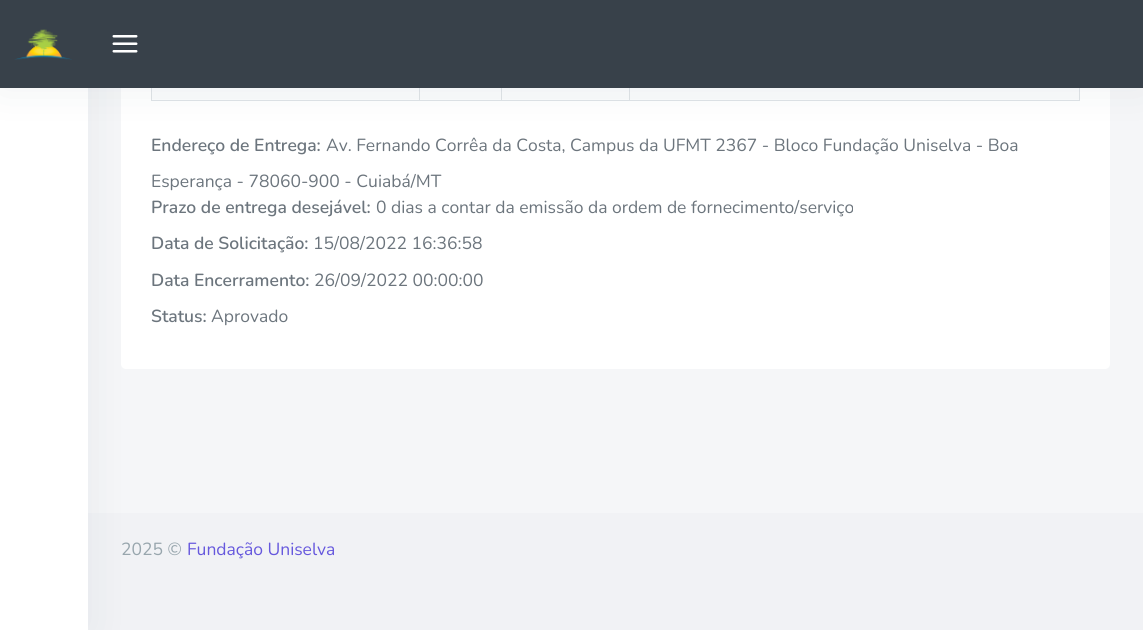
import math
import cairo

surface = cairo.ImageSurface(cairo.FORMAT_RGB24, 1143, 630)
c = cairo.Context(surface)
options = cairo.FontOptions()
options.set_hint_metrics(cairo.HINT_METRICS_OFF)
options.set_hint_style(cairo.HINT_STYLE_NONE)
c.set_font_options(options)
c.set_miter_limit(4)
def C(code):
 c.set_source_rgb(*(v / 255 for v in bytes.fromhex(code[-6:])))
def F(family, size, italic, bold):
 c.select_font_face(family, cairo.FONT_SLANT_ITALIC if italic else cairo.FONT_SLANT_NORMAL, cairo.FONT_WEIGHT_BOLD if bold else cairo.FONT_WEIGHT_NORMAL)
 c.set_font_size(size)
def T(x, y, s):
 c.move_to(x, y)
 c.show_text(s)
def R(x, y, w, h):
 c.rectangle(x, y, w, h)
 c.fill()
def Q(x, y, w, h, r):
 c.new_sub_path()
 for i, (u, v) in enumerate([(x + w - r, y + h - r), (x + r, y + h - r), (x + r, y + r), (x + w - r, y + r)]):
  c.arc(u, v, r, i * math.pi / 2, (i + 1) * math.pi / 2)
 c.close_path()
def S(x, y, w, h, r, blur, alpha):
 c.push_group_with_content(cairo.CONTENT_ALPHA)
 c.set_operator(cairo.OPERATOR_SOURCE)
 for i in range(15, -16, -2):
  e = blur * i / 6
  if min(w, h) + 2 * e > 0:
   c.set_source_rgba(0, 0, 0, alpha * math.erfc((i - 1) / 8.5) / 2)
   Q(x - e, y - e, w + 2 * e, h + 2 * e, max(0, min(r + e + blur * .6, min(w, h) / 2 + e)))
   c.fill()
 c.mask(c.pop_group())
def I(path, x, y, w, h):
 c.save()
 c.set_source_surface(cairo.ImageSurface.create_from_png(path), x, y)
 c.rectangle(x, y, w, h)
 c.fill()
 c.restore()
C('f5f6f8')
c.paint()
C('ffffff')
Q(121,-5,989,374,5)
c.fill()
C('fbfcfd')
R(152,88,927,12)
C('dee2e6')
R(1079,88,1,13)
R(151,100,929,1)
R(151,88,1,13)
C('f1f2f5')
R(88,513,1055,117)
C('9aa1ab')
S(0,-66,88,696,0,22,.15)
C('ffffff')
R(0,88,88,542)
C('dee2e6')
R(419,88,1,13)
R(501,88,1,13)
R(629,88,1,13)
C('9aa1ab')
S(0,0,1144,88,0,22,.15)
C('38414a')
R(0,0,1143,88)
I('1.png',14,29,58,31)
I('2.png',112,35,26,18)
F('Nunito SemiBold',17.5,0,0)
C('6c757d')
T(151,151,'Endereço de Entrega:')
F('Nunito',17.5,0,0)
T(326,151,'Av. Fernando Corrêa da Costa, Campus da UFMT 2367 - Bloco Fundação Uniselva - Boa')
T(151,187,'Esperança - 78060-900 - Cuiabá/MT')
F('Nunito SemiBold',17.5,0,0)
T(151,213,'Prazo de entrega desejável:')
F('Nunito',17.5,0,0)
T(376,213,'0 dias a contar da emissão da ordem de fornecimento/serviço')
F('Nunito SemiBold',17.5,0,0)
T(151,249,'Data de Solicitação:')
F('Nunito',17.5,0,0)
T(313,249,'15/08/2022 16:36:58')
F('Nunito SemiBold',17.5,0,0)
T(151,286,'Data Encerramento:')
F('Nunito',17.5,0,0)
T(314,286,'26/09/2022 00:00:00')
F('Nunito SemiBold',17.5,0,0)
T(151,322,'Status:')
F('Nunito',17.5,0,0)
T(211,322,'Aprovado')
C('98a6ad')
T(121,555,'2025 ©')
C('6658dd')
T(187,555,'Fundação Uniselva')
surface.write_to_png('o.png')
